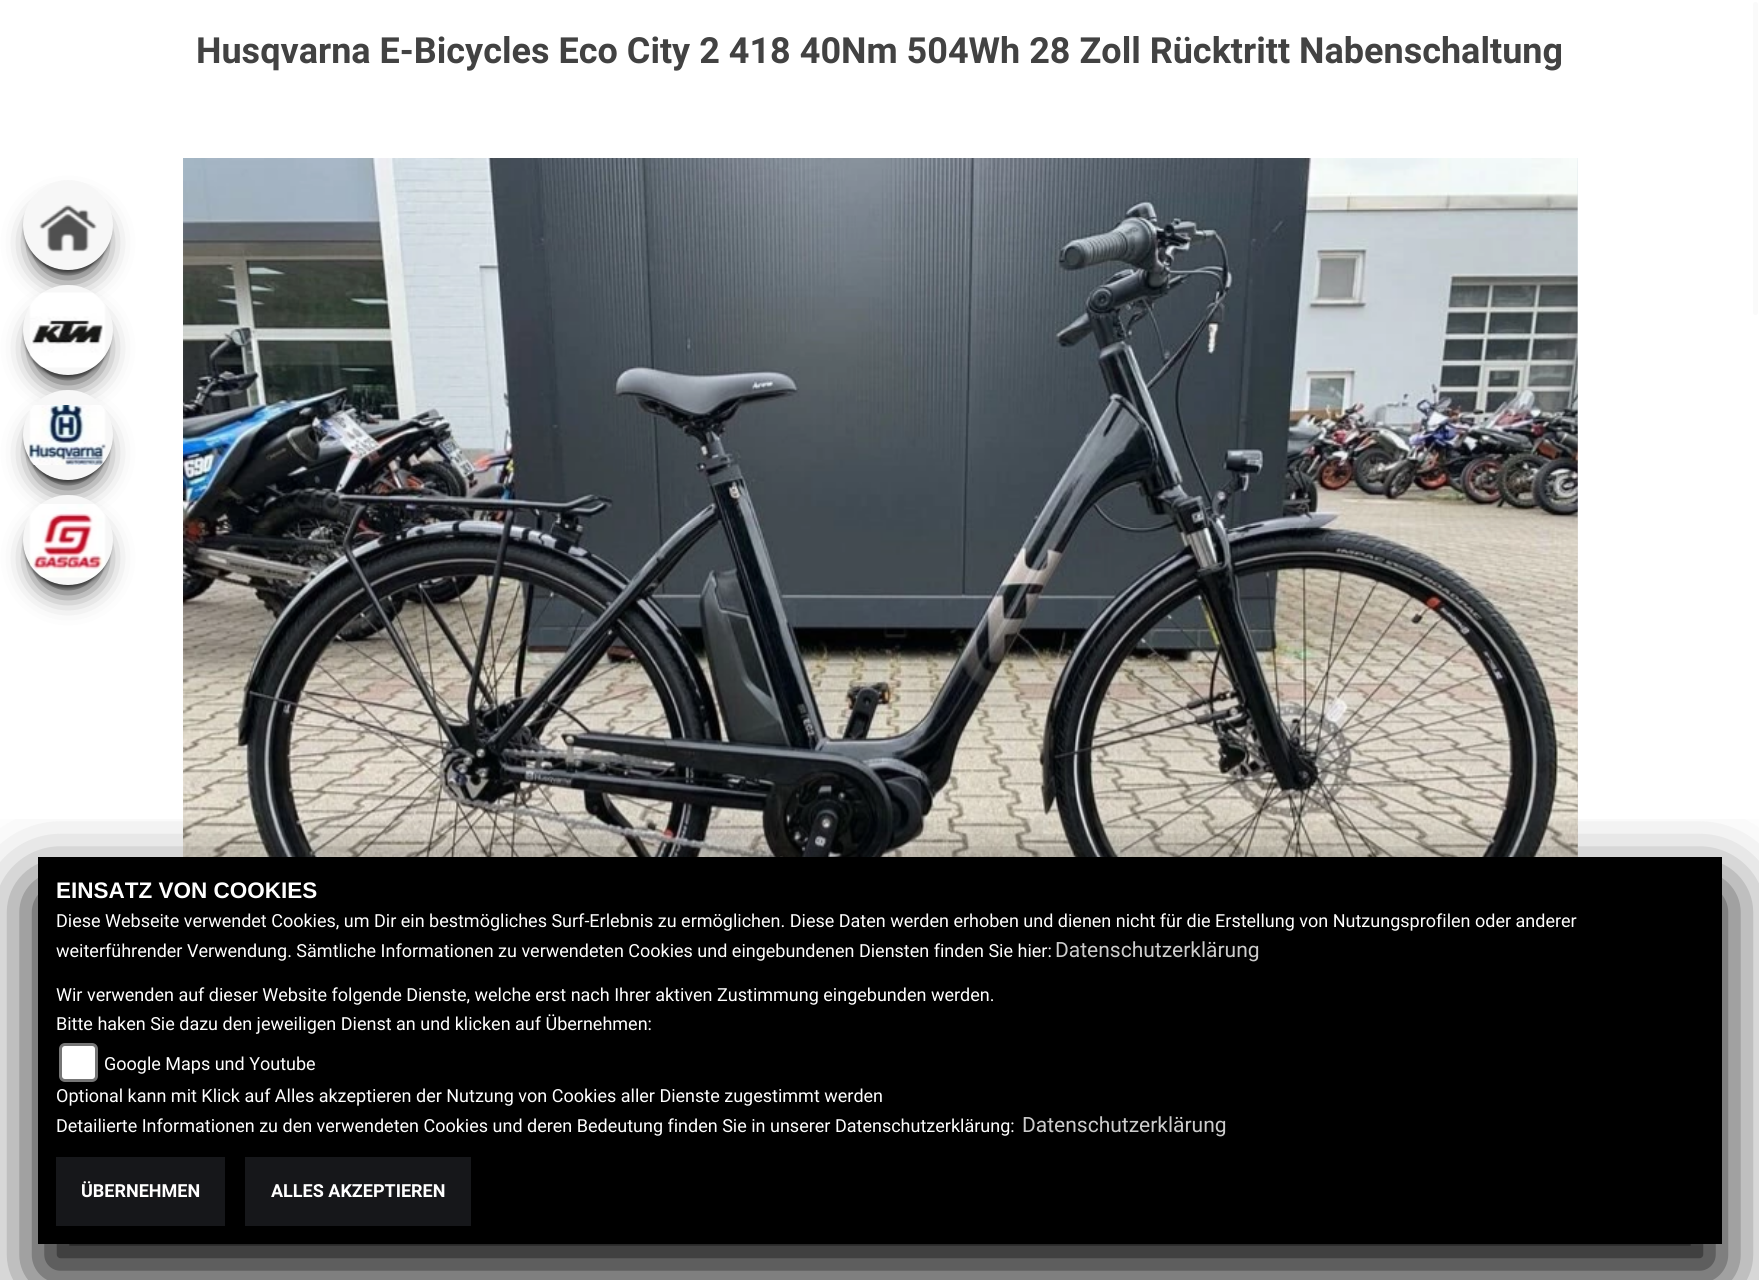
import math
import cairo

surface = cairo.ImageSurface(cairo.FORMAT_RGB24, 1759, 1280)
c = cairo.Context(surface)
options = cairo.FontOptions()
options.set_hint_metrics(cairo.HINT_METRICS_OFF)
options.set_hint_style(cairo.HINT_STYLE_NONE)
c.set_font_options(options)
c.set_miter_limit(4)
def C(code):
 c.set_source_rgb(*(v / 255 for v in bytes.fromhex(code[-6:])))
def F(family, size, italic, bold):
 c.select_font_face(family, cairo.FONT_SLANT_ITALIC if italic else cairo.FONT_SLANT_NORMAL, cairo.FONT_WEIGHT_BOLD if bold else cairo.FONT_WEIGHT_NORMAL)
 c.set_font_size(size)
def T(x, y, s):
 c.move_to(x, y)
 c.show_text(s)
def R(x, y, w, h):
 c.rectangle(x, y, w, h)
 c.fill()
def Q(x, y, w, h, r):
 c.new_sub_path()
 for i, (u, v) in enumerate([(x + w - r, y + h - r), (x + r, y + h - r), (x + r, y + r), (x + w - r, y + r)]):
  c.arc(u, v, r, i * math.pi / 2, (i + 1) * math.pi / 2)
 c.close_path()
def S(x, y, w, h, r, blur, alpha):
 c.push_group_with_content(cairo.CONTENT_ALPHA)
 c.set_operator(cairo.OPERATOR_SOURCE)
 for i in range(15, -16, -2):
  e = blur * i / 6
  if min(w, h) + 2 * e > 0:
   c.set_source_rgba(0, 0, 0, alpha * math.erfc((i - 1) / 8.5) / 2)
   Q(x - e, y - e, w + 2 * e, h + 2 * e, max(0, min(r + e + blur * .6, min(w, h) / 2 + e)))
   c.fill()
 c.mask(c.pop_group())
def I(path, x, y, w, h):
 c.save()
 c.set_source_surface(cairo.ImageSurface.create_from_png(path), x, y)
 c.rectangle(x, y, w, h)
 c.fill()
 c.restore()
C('ffffff')
c.paint()
F('Roboto',36,0,1)
C('424242')
T(196,63,'Husqvarna E-Bicycles Eco City 2 418 40Nm 504Wh 28 Zoll Rücktritt Nabenschaltung')
C('fafafa')
Q(1752,1,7,315,3.5)
c.fill_preserve()
C('ffffff')
c.stroke()
C('000000')
S(38,213,60,60,30,15,1)
S(24,186,87,87,43.5,1.5,.5)
C('f7f7f7')
c.arc(68,225,45,0,2 * math.pi)
c.fill()
I('1.png',39,205,58,47)
C('000000')
S(38,318,60,60,30,15,1)
S(24,291,87,87,43.5,1.5,.5)
C('f7f7f7')
c.arc(68,330,45,0,2 * math.pi)
c.fill()
I('2.png',29,292,77,76)
C('000000')
S(38,423,60,60,30,15,1)
S(24,396,87,87,43.5,1.5,.5)
C('f7f7f7')
c.arc(68,435,45,0,2 * math.pi)
c.fill()
I('3.png',29,405,77,60)
C('000000')
S(38,528,60,60,30,15,1)
S(24,501,87,87,43.5,1.5,.5)
C('f7f7f7')
c.arc(68,540,45,0,2 * math.pi)
c.fill()
I('4.png',29,504,77,74)
I('5.png',183,158,1395,699)
I('6.png',1577,158,1,699)
c.save()
c.rectangle(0,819,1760,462)
c.clip()
C('000000')
S(38,890,1684,387,0,37.5,1)
c.restore()
C('000000')
R(38,857,1684,387)
F('Liberation Sans',22.5,0,1)
C('ffffff')
T(56,898,'EINSATZ VON COOKIES')
F('Roboto',18,0,0)
T(56,927,'Diese Webseite verwendet Cookies, um Dir ein bestmögliches Surf-Erlebnis zu ermöglichen. Diese Daten werden erhoben und dienen nicht für die Erstellung von Nutzungsprofilen oder anderer')
T(56,957,'weiterführender Verwendung. Sämtliche Informationen zu verwendeten Cookies und eingebundenen Diensten finden Sie hier:')
F('Roboto',21,0,0)
C('cccccc')
T(1055,957,'Datenschutzerklärung')
F('Roboto',18,0,0)
C('ffffff')
T(56,1001,'Wir verwenden auf dieser Website folgende Dienste, welche erst nach Ihrer aktiven Zustimmung eingebunden werden.')
T(56,1030,'Bitte haken Sie dazu den jeweiligen Dienst an und klicken auf Übernehmen:')
Q(60.5,1044.5,36,36,4.5)
c.fill_preserve()
C('767676')
c.set_line_width(3)
c.stroke()
C('ffffff')
T(104,1070,'Google Maps und Youtube')
T(56,1102,'Optional kann mit Klick auf Alles akzeptieren der Nutzung von Cookies aller Dienste zugestimmt werden')
T(56,1132,'Detailierte Informationen zu den verwendeten Cookies und deren Bedeutung finden Sie in unserer Datenschutzerklärung:')
F('Roboto',21,0,0)
C('cccccc')
T(1022,1132,'Datenschutzerklärung')
C('16171a')
R(56,1157,169,69)
F('Roboto',18,0,1)
C('ffffff')
T(81,1197,'ÜBERNEHMEN')
C('16171a')
R(245,1157,226,69)
C('ffffff')
T(271,1197,'ALLES AKZEPTIEREN')
surface.write_to_png('o.png')
